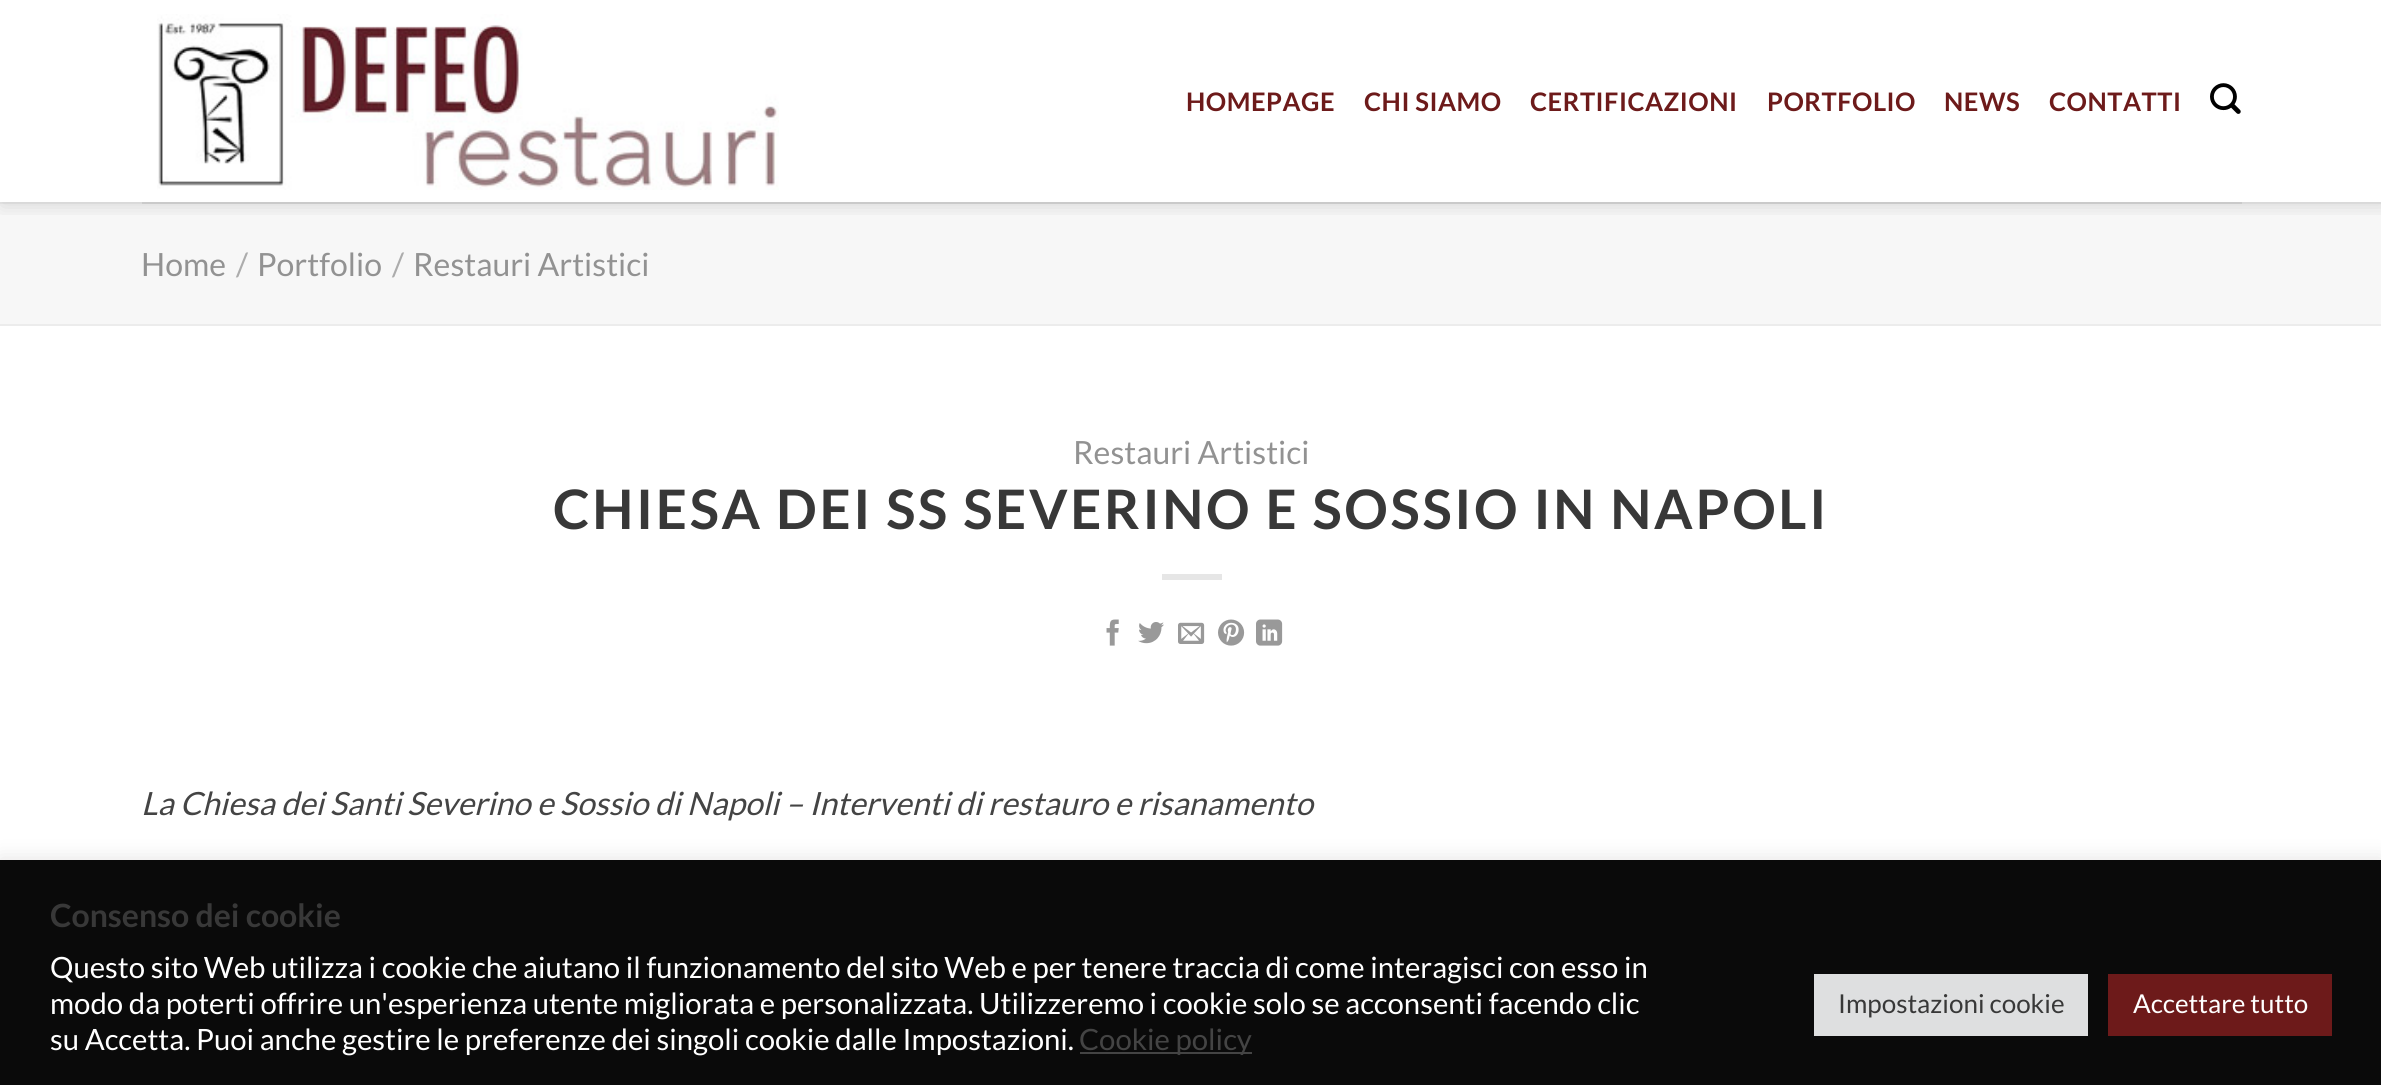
import math
import cairo

surface = cairo.ImageSurface(cairo.FORMAT_RGB24, 2381, 1085)
c = cairo.Context(surface)
options = cairo.FontOptions()
options.set_hint_metrics(cairo.HINT_METRICS_OFF)
options.set_hint_style(cairo.HINT_STYLE_NONE)
c.set_font_options(options)
c.set_miter_limit(4)
def C(code):
 c.set_source_rgb(*(v / 255 for v in bytes.fromhex(code[-6:])))
def F(family, size, italic, bold):
 c.select_font_face(family, cairo.FONT_SLANT_ITALIC if italic else cairo.FONT_SLANT_NORMAL, cairo.FONT_WEIGHT_BOLD if bold else cairo.FONT_WEIGHT_NORMAL)
 c.set_font_size(size)
def T(x, y, s):
 c.move_to(x, y)
 c.show_text(s)
def L(x, y, s, letter, word):
 c.move_to(x, y)
 for ch in s:
  c.show_text(ch)
  c.rel_move_to(letter + word * (ch == ' '), 0)
def R(x, y, w, h):
 c.rectangle(x, y, w, h)
 c.fill()
def Q(x, y, w, h, r):
 c.new_sub_path()
 for i, (u, v) in enumerate([(x + w - r, y + h - r), (x + r, y + h - r), (x + r, y + r), (x + w - r, y + r)]):
  c.arc(u, v, r, i * math.pi / 2, (i + 1) * math.pi / 2)
 c.close_path()
def S(x, y, w, h, r, blur, alpha):
 c.push_group_with_content(cairo.CONTENT_ALPHA)
 c.set_operator(cairo.OPERATOR_SOURCE)
 for i in range(15, -16, -2):
  e = blur * i / 6
  if min(w, h) + 2 * e > 0:
   c.set_source_rgba(0, 0, 0, alpha * math.erfc((i - 1) / 8.5) / 2)
   Q(x - e, y - e, w + 2 * e, h + 2 * e, max(0, min(r + e + blur * .6, min(w, h) / 2 + e)))
   c.fill()
 c.mask(c.pop_group())
def I(path, x, y, w, h):
 c.save()
 c.set_source_surface(cairo.ImageSurface.create_from_png(path), x, y)
 c.rectangle(x, y, w, h)
 c.fill()
 c.restore()
C('ffffff')
c.paint()
C('f7f7f7')
R(0,204,2381,120)
C('ececec')
R(0,202,2381,2)
c.save()
c.rectangle(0,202,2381,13)
c.clip()
C('000000')
S(2,2,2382,202,0,10,.15)
c.restore()
I('1.png',157,14,622,176)
F('Lato',25.5,0,1)
C('6d1a1a')
L(1186,111,'HOMEPAGE',.5,0)
L(1364,111,'CHI SIAMO',.5,0)
L(1530,111,'CERTIFICAZIONI',.5,0)
L(1767,111,'PORTFOLIO',.5,0)
L(1944,111,'NEWS',.5,0)
L(2049,111,'CONTATTI',.5,0)
I('2.png',2210,83,31,31)
C('cacaca')
R(142,202,2100,2)
C('ececec')
R(0,324,2381,2)
F('Lato',32,0,0)
C('929292')
T(141,276,'Home')
C('acacac')
T(236,276,'/')
C('929292')
T(257,276,'Portfolio')
C('acacac')
T(392,276,'/')
C('929292')
T(413,276,'Restauri Artistici')
T(1073,464,'Restauri Artistici')
F('Lato',54.4,0,1)
C('383838')
L(553,529,'CHIESA DEI SS SEVERINO E SOSSIO IN NAPOLI',2.7,0)
C('e6e6e6')
R(1162,574,60,6)
I('3.png',1106,619,13,27)
I('4.png',1138,622,26,22)
I('5.png',1178,622,27,22)
I('6.png',1218,619,27,27)
I('7.png',1256,619,27,27)
F('Lato',32,1,0)
C('444444')
T(141,815,'La Chiesa dei Santi Severino e Sossio di Napoli – Interventi di restauro e risanamento')
C('acabab')
S(0,858,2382,226,0,10,.3)
C('0a0a0a')
R(0,860,2381,225)
F('Lato',32,0,1)
C('383838')
T(50,927,'Consenso dei cookie')
F('Lato',29.33,0,0)
C('ffffff')
T(50,978,'Questo sito Web utilizza i cookie che aiutano il funzionamento del sito Web e per tenere traccia di come interagisci con esso in')
T(50,1014,'modo da poterti offrire un\'esperienza utente migliorata e personalizzata. Utilizzeremo i cookie solo se acconsenti facendo clic')
T(50,1050,'su Accetta. Puoi anche gestire le preferenze dei singoli cookie dalle Impostazioni.')
C('444444')
R(1080,1052,172,2)
T(1079,1050,'Cookie policy')
C('dedfe0')
R(1814,974,274,62)
F('Lato',26,0,0)
C('383838')
T(1838,1013,'Impostazioni cookie')
C('6d1a1a')
R(2108,974,224,62)
C('ffffff')
T(2133,1013,'Accettare tutto')
surface.write_to_png('o.png')
